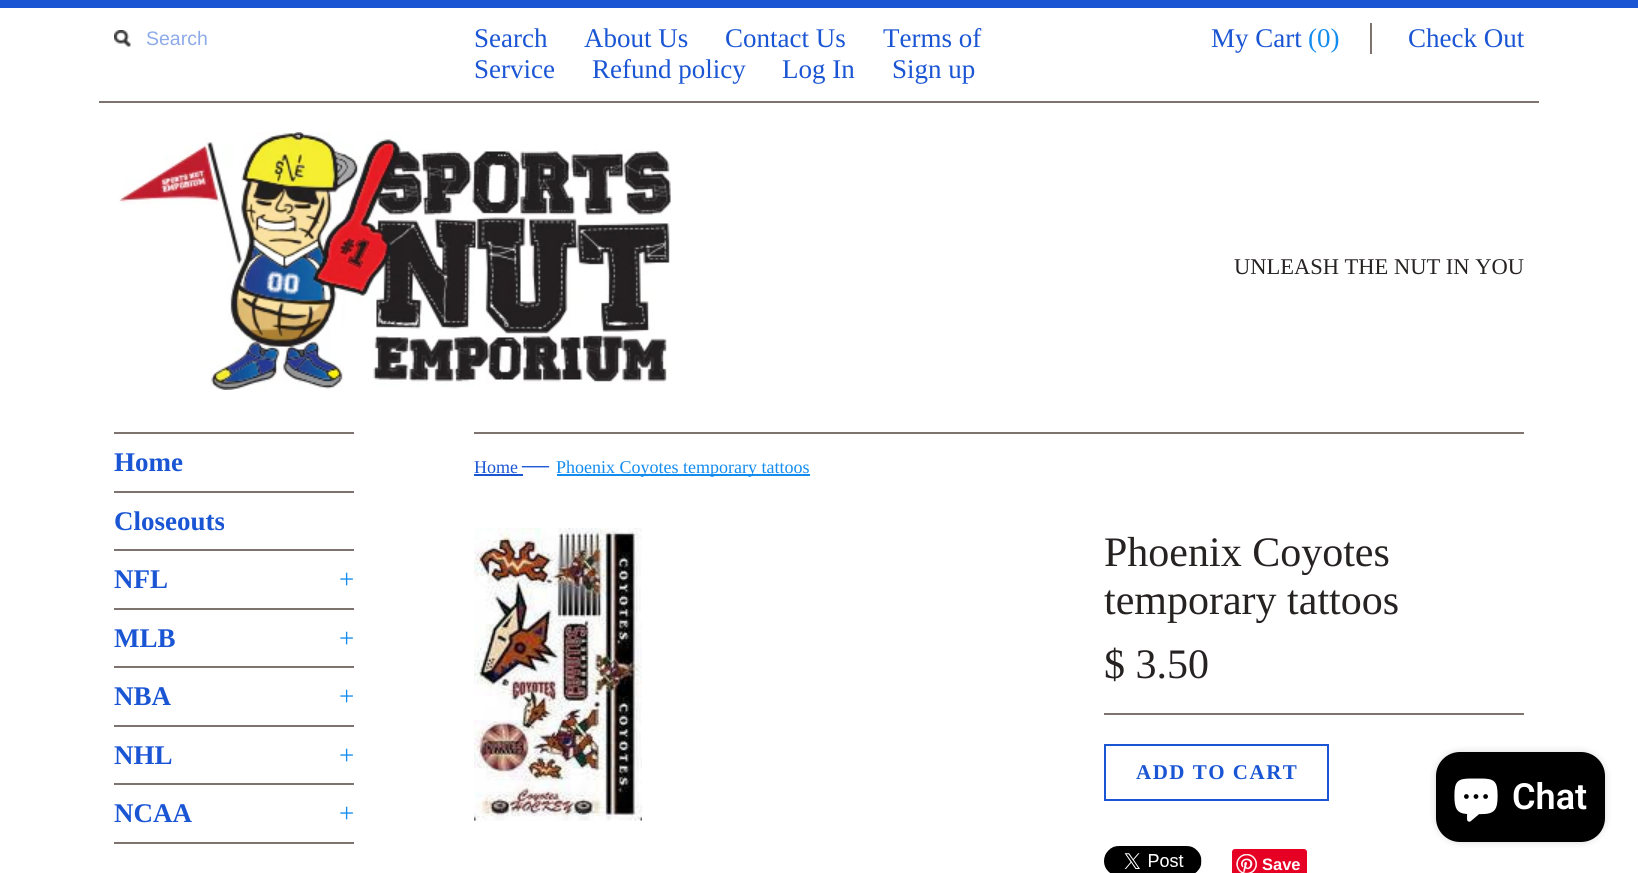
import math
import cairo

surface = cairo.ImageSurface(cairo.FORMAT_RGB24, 1638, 873)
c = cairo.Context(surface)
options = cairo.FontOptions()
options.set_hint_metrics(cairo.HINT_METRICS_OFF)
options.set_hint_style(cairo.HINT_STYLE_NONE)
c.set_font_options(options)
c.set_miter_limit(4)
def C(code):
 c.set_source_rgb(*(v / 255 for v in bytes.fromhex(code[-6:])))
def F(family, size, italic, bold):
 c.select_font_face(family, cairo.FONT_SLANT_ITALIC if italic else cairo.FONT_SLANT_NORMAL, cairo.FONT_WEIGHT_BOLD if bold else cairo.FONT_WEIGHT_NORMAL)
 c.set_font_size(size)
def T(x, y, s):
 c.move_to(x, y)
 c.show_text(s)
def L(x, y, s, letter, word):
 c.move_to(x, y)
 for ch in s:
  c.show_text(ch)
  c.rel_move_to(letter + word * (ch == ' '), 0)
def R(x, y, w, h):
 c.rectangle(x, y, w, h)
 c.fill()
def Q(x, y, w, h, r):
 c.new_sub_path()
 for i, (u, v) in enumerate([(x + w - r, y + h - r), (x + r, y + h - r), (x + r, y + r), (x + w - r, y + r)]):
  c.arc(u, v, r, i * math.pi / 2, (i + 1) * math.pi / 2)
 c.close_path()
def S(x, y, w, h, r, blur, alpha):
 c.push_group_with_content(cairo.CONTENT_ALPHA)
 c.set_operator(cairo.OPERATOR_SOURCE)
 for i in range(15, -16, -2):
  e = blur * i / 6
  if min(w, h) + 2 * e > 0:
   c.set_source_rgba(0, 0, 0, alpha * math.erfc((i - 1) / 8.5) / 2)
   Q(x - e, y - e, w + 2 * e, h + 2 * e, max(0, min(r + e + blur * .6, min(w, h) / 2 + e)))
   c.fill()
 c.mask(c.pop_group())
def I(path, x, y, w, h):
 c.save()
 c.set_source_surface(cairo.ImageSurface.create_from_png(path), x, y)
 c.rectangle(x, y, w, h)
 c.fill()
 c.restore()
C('ffffff')
c.paint()
C('1a55d4')
R(0,0,1638,8)
C('7d736f')
R(99,101,1440,2)
I('1.png',114,30,17,17)
F('Liberation Sans',19.5,0,0)
C('8daaea')
T(146,45,'Search')
F('Liberation Serif',27,0,0)
C('1a55d4')
T(474,47,'Search')
T(584,47,'About Us')
T(725,47,'Contact Us')
T(883,47,'Terms of')
T(474,78,'Service')
T(592,78,'Refund policy')
T(782,78,'Log In')
T(892,78,'Sign up')
T(1211,47,'My Cart')
C('138cf0')
T(1308,47,'(0)')
C('7d736f')
R(1370,23,2,31)
C('1a55d4')
T(1408,47,'Check Out')
I('2.png',119,132,552,258)
F('Liberation Serif',22.5,0,0)
C('262222')
T(1234,274,'UNLEASH THE NUT IN YOU')
C('7d736f')
R(114,432,240,2)
F('Liberation Serif',27,0,1)
C('1a55d4')
T(114,471,'Home')
C('7d736f')
R(114,491,240,2)
C('1a55d4')
T(114,530,'Closeouts')
C('7d736f')
R(114,549,240,2)
C('1a55d4')
T(114,588,'NFL')
F('Liberation Serif',27,0,0)
C('138cf0')
T(339,588,'+')
C('7d736f')
R(114,608,240,2)
F('Liberation Serif',27,0,1)
C('1a55d4')
T(114,647,'MLB')
F('Liberation Serif',27,0,0)
C('138cf0')
T(339,647,'+')
C('7d736f')
R(114,666,240,2)
F('Liberation Serif',27,0,1)
C('1a55d4')
T(114,705,'NBA')
F('Liberation Serif',27,0,0)
C('138cf0')
T(339,705,'+')
C('7d736f')
R(114,725,240,2)
F('Liberation Serif',27,0,1)
C('1a55d4')
T(114,764,'NHL')
F('Liberation Serif',27,0,0)
C('138cf0')
T(339,764,'+')
C('7d736f')
R(114,783,240,2)
F('Liberation Serif',27,0,1)
C('1a55d4')
T(114,822,'NCAA')
F('Liberation Serif',27,0,0)
C('138cf0')
T(339,822,'+')
C('7d736f')
R(114,842,240,2)
R(474,432,1050,2)
F('Liberation Serif',18,0,0)
C('1a55d4')
T(474,473,'Home')
R(474,474,49,2)
F('Liberation Serif',27,0,0)
T(522,473,'—')
C('138cf0')
R(557,474,253,2)
F('Liberation Serif',18,0,0)
T(556,473,'Phoenix Coyotes temporary tattoos')
I('3.png',474,528,168,293)
F('Liberation Serif',42,0,0)
C('262222')
T(1104,566,'Phoenix Coyotes')
T(1104,614,'temporary tattoos')
T(1104,678,'$ 3.50')
C('7d736f')
R(1104,713,420,2)
c.rectangle(1105,745,223,55)
C('1a55d4')
c.stroke()
F('Liberation Serif',21,0,1)
L(1136,779,'ADD TO CART',1.5,0)
I('4.png',1104,846,98,27)
C('e60023')
Q(1232,849,75,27,3)
c.fill()
I('5.png',1236,854,21,19)
F('Liberation Sans',16.5,0,1)
C('ffffff')
T(1262,870,'Save')
C('000000')
S(1436,752,169,90,24,4,.15)
C('000000')
Q(1436,752,169,90,24)
c.fill()
I('6.png',1454,778,44,44)
F('Roboto SemiBold',36,0,0)
C('ffffff')
T(1512,809,'Chat')
surface.write_to_png('o.png')
